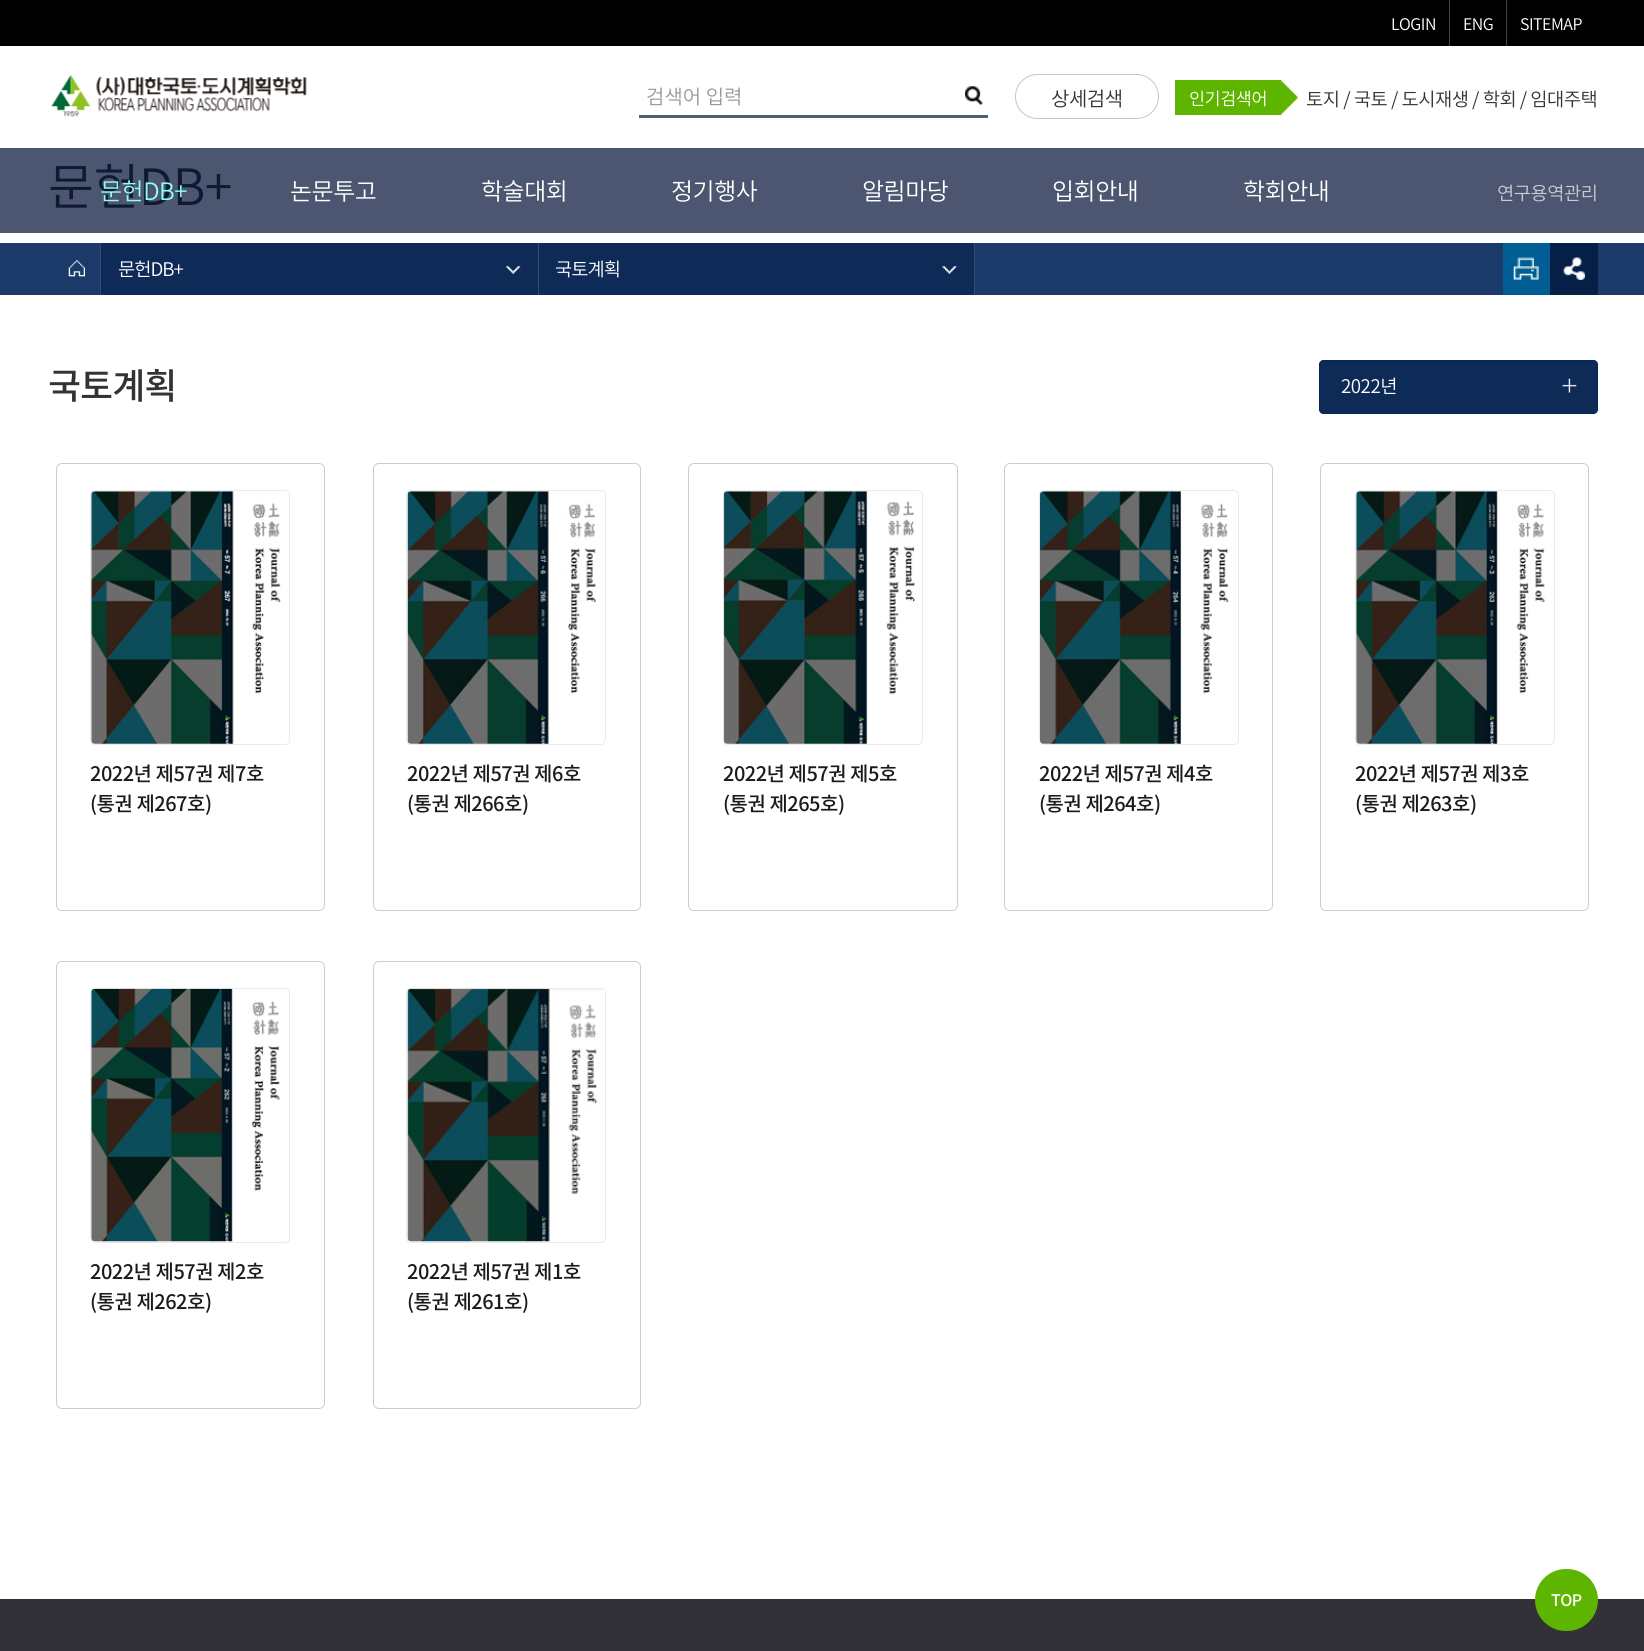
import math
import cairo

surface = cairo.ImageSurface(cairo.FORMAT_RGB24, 1644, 1651)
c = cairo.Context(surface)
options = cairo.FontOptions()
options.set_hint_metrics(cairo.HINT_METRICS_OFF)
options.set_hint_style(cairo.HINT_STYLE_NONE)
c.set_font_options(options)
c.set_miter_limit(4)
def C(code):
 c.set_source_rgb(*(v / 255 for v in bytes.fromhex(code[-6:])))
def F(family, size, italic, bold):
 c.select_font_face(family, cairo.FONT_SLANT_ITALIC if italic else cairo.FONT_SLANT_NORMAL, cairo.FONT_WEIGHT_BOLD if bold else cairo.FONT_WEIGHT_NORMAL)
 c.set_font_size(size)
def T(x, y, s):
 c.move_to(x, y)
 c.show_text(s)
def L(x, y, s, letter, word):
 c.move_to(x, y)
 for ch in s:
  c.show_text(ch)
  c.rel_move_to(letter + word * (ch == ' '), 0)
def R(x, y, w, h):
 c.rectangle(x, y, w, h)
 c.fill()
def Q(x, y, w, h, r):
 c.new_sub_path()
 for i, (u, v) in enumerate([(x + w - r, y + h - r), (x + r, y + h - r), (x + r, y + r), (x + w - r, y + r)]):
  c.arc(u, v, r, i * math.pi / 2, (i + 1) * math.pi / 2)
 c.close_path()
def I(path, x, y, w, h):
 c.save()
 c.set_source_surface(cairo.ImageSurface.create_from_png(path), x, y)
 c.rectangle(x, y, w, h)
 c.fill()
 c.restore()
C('ffffff')
c.paint()
C('4d5670')
R(0,148,1644,85)
C('000000')
R(0,0,1644,46)
C('454545')
R(1449,0,1,46)
F('Noto Sans KR Light',16,0,0)
C('ffffff')
L(1391,30,'LOGIN',-.5,0)
C('454545')
R(1506,0,1,46)
C('ffffff')
L(1463,30,'ENG',-.5,0)
L(1520,30,'SITEMAP',-.5,0)
I('1.png',51,75,256,42)
C('4c6270')
R(639,115,349,3)
F('Noto Sans KR Light',20,0,0)
C('999999')
T(646,104,'검색어 입력')
I('2.png',965,86,18,19)
Q(1015.5,74.5,143,44,22)
C('c5c5c5')
c.set_line_width(1)
c.stroke()
C('333333')
L(1051,106,'상세검색',-.5,0)
I('3.png',1175,80,123,35)
F('Noto Sans KR Light',17.5,0,0)
C('ffffff')
L(1189,105,'인기검색어',-.5,0)
F('Noto Sans KR Light',18.75,0,0)
C('333333')
L(1306,106,'토지 / 국토 / 도시재생 / 학회 / 임대주택',-.5,0)
F('Noto Sans KR Light',50,0,0)
C('0f1933')
L(48,205,'문헌DB+',-.5,0)
F('Noto Sans KR Light',24,0,0)
C('8dfff4')
L(100,200,'문헌DB+',-.5,0)
C('ffffff')
L(290,200,'논문투고',-.5,0)
L(481,200,'학술대회',-.5,0)
L(671,200,'정기행사',-.5,0)
L(862,200,'알림마당',-.5,0)
L(1052,200,'입회안내',-.5,0)
L(1243,200,'학회안내',-.5,0)
F('Noto Sans KR Light',18.75,0,0)
C('c8cbd3')
L(1497,200,'연구용역관리',-.5,0)
C('1b3a6a')
R(0,243,1644,52)
I('4.png',68,260,17,17)
C('0e2b58')
R(101,243,437,52)
I('5.png',506,266,15,8)
C('324b71')
R(100,243,1,52)
C('ffffff')
L(118,276,'문헌DB+',-1,0)
C('0e2b58')
R(539,243,435,52)
I('6.png',942,266,15,8)
C('324b71')
R(974,243,1,52)
R(538,243,1,52)
C('ffffff')
L(555,276,'국토계획',-1,0)
C('005e95')
R(1503,243,47,52)
I('7.png',1513,257,26,23)
C('061f46')
R(1550,243,48,52)
I('8.png',1563,257,22,23)
F('Noto Sans KR Medium',36,0,0)
C('333333')
L(48,399,'국토계획',-1,0)
C('0e2b58')
Q(1319,360,279,54,5)
c.fill()
I('9.png',1562,378,15,15)
Q(1319.5,360.5,278,53,4.5)
C('0a2754')
c.stroke()
F('Noto Sans KR Light',18.75,0,0)
C('ffffff')
L(1341,393,'2022년',-.5,0)
Q(56.5,463.5,268,447,5.5)
C('cdcdcd')
c.stroke()
Q(90.5,490.5,199,254,4.5)
C('eaeaea')
c.stroke()
I('10.png',91,491,190,253)
F('Noto Sans KR Medium',20,0,0)
C('1b1b1b')
L(90,781,'2022년 제57권 제7호',-.5,0)
L(90,811,'(통권 제267호)',-.5,0)
Q(373.5,463.5,267,447,5.5)
C('cdcdcd')
c.stroke()
Q(406.5,490.5,199,254,4.5)
C('eaeaea')
c.stroke()
I('11.png',407,491,198,253)
C('1b1b1b')
L(407,781,'2022년 제57권 제6호',-.5,0)
L(407,811,'(통권 제266호)',-.5,0)
Q(688.5,463.5,269,447,5.5)
C('cdcdcd')
c.stroke()
Q(723.5,490.5,199,254,4.5)
C('eaeaea')
c.stroke()
I('12.png',723,491,193,253)
C('1b1b1b')
L(723,781,'2022년 제57권 제5호',-.5,0)
L(723,811,'(통권 제265호)',-.5,0)
Q(1004.5,463.5,268,447,5.5)
C('cdcdcd')
c.stroke()
Q(1039.5,490.5,199,254,4.5)
C('eaeaea')
c.stroke()
I('13.png',1040,491,189,253)
C('1b1b1b')
L(1039,781,'2022년 제57권 제4호',-.5,0)
L(1039,811,'(통권 제264호)',-.5,0)
Q(1320.5,463.5,268,447,5.5)
C('cdcdcd')
c.stroke()
Q(1355.5,490.5,199,254,4.5)
C('eaeaea')
c.stroke()
I('14.png',1356,491,189,253)
C('1b1b1b')
L(1355,781,'2022년 제57권 제3호',-.5,0)
L(1355,811,'(통권 제263호)',-.5,0)
Q(56.5,961.5,268,447,5.5)
C('cdcdcd')
c.stroke()
Q(90.5,988.5,199,254,4.5)
C('eaeaea')
c.stroke()
I('15.png',91,988,198,254)
C('1b1b1b')
L(90,1279,'2022년 제57권 제2호',-.5,0)
L(90,1309,'(통권 제262호)',-.5,0)
Q(373.5,961.5,267,447,5.5)
C('cdcdcd')
c.stroke()
Q(406.5,988.5,199,254,4.5)
C('eaeaea')
c.stroke()
I('16.png',407,988,198,254)
C('1b1b1b')
L(407,1279,'2022년 제57권 제1호',-.5,0)
L(407,1309,'(통권 제261호)',-.5,0)
C('313137')
R(0,1599,1644,52)
C('5db500')
Q(1535,1569,63,62,31)
c.fill()
F('Noto Sans KR Medium',16,0,0)
C('ffffff')
L(1551,1606,'TOP',-.5,0)
surface.write_to_png('o.png')
